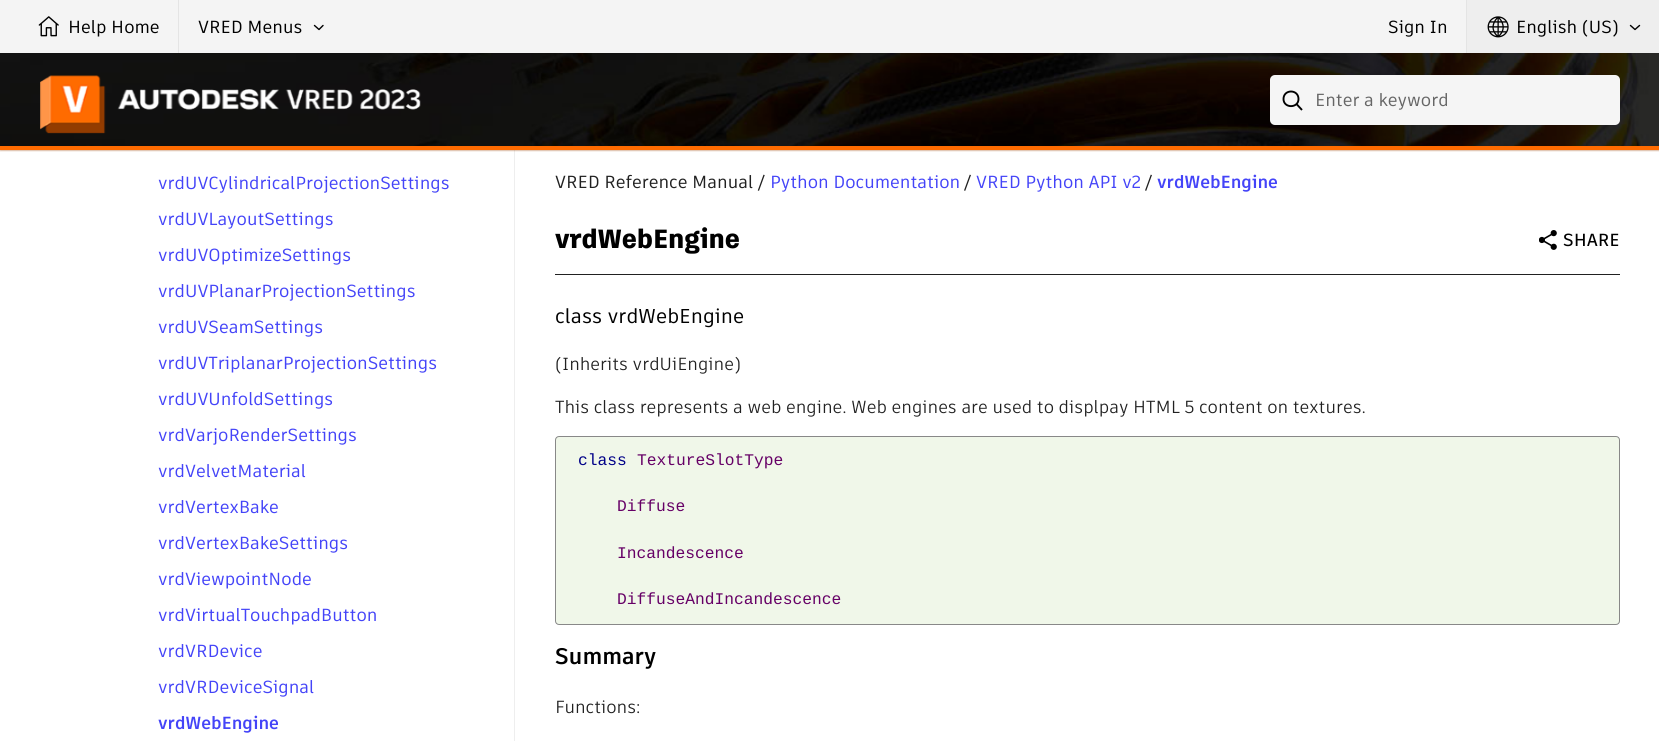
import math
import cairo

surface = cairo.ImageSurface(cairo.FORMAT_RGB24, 1659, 741)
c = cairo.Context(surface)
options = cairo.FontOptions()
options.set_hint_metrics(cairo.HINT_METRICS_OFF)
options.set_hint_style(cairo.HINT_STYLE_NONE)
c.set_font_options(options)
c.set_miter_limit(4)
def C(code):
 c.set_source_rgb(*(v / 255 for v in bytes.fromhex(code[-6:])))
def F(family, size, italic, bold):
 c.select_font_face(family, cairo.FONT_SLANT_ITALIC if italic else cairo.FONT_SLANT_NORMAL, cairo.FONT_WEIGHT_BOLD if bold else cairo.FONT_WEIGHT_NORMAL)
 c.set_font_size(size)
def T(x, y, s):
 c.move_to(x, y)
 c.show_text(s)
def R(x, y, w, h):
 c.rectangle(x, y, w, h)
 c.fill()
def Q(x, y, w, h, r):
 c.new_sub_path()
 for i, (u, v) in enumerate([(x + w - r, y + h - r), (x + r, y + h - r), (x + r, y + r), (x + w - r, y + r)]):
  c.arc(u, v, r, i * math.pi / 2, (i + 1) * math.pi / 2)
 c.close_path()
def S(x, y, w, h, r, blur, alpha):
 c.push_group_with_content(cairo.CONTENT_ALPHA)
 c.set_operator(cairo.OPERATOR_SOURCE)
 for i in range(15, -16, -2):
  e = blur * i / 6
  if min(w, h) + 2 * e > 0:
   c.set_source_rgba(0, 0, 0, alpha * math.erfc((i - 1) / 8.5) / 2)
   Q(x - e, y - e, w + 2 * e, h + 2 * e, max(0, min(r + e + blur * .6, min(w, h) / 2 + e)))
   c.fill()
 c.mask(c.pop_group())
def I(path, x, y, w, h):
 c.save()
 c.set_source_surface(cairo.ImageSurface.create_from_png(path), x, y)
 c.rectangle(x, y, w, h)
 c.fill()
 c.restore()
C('ffffff')
c.paint()
C('eeeeee')
R(514,150,1,591)
C('994000')
S(0,54,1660,97,0,.5,.33)
C('f4f4f4')
R(0,0,1466,53)
I('1.png',38,16,21,21)
F('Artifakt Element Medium',17.5,0,0)
C('000000')
T(68,33,'Help Home')
C('e4e4e4')
R(178,0,1,53)
C('000000')
T(198,33,'VRED Menus')
c.new_path()
c.move_to(323,25.5)
c.line_to(319,29.5)
c.line_to(314.5,25.5)
c.set_line_width(1.4)
c.set_line_cap(cairo.LINE_CAP_ROUND)
c.set_line_join(cairo.LINE_JOIN_ROUND)
c.stroke()
T(1388,33,'Sign In')
C('eeeeee')
R(1467,0,192,53)
C('e4e4e4')
R(1466,0,1,53)
I('2.png',1487,16,22,22)
C('000000')
T(1516,33,'English (US)')
c.new_path()
c.move_to(1639.5,25.5)
c.line_to(1635,29.5)
c.line_to(1630.5,25.5)
c.stroke()
I('3.png',0,53,1659,93)
C('ff6b00')
R(0,146,1659,4)
I('4.png',40,75,381,59)
C('f5f5f5')
Q(1270,75,350,50,5)
c.fill()
c.new_path()
c.move_to(1296.5,104)
c.line_to(1302,110)
c.move_to(1298.5,99)
c.curve_to(1298.5,108.5,1283.5,108.5,1283.5,99)
c.curve_to(1283.5,89,1298.5,89,1298.5,99)
c.close_path()
C('000000')
c.set_line_width(1.9)
c.set_line_cap(cairo.LINE_CAP_BUTT)
c.set_line_join(cairo.LINE_JOIN_MITER)
c.stroke()
C('666666')
T(1315,106,'Enter a keyword')
C('4444f8')
T(158,189,'vrdUVCylindricalProjectionSettings')
T(158,225,'vrdUVLayoutSettings')
T(158,261,'vrdUVOptimizeSettings')
T(158,297,'vrdUVPlanarProjectionSettings')
T(158,333,'vrdUVSeamSettings')
T(158,369,'vrdUVTriplanarProjectionSettings')
T(158,405,'vrdUVUnfoldSettings')
T(158,441,'vrdVarjoRenderSettings')
T(158,477,'vrdVelvetMaterial')
T(158,513,'vrdVertexBake')
T(158,549,'vrdVertexBakeSettings')
T(158,585,'vrdViewpointNode')
T(158,621,'vrdVirtualTouchpadButton')
T(158,657,'vrdVRDevice')
T(158,693,'vrdVRDeviceSignal')
F('Artifakt Element',17.5,0,1)
T(158,729,'vrdWebEngine')
F('Artifakt Element Medium',17.5,0,0)
C('212121')
T(555,188,'VRED Reference Manual /')
C('4444f8')
T(770,188,'Python Documentation')
C('212121')
T(964,188,'/')
C('4444f8')
T(976,188,'VRED Python API v2')
C('212121')
T(1145,188,'/')
F('Artifakt Element',17.5,0,1)
C('4444f8')
T(1157,188,'vrdWebEngine')
C('212121')
R(555,274,1065,1)
F('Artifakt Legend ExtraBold',26.25,0,0)
C('000000')
T(555,248,'vrdWebEngine')
F('Artifakt Element Medium',20,0,0)
T(555,323,'class vrdWebEngine')
F('Artifakt Element',17.5,0,0)
C('212121')
T(555,370,'(Inherits vrdUiEngine)')
T(555,413,'This class represents a web engine. Web engines are used to displpay HTML 5 content on textures.')
C('f0f7e9')
Q(555.5,436.5,1064,188,3.5)
c.fill_preserve()
C('888888')
c.set_line_width(1)
c.stroke()
F('Liberation Mono',16.25,0,0)
C('000088')
T(578,465,'class')
C('660066')
T(637,465,'TextureSlotType')
T(617,511,'Diffuse')
T(617,558,'Incandescence')
T(617,604,'DiffuseAndIncandescence')
F('Artifakt Element',22.5,0,1)
C('000000')
T(555,664,'Summary')
F('Artifakt Element',17.5,0,0)
C('212121')
T(555,713,'Functions:')
I('5.png',1539,230,18,20)
F('Artifakt Element SemiBold',17.5,0,0)
C('000000')
T(1563,246,'SHARE')
surface.write_to_png('o.png')
